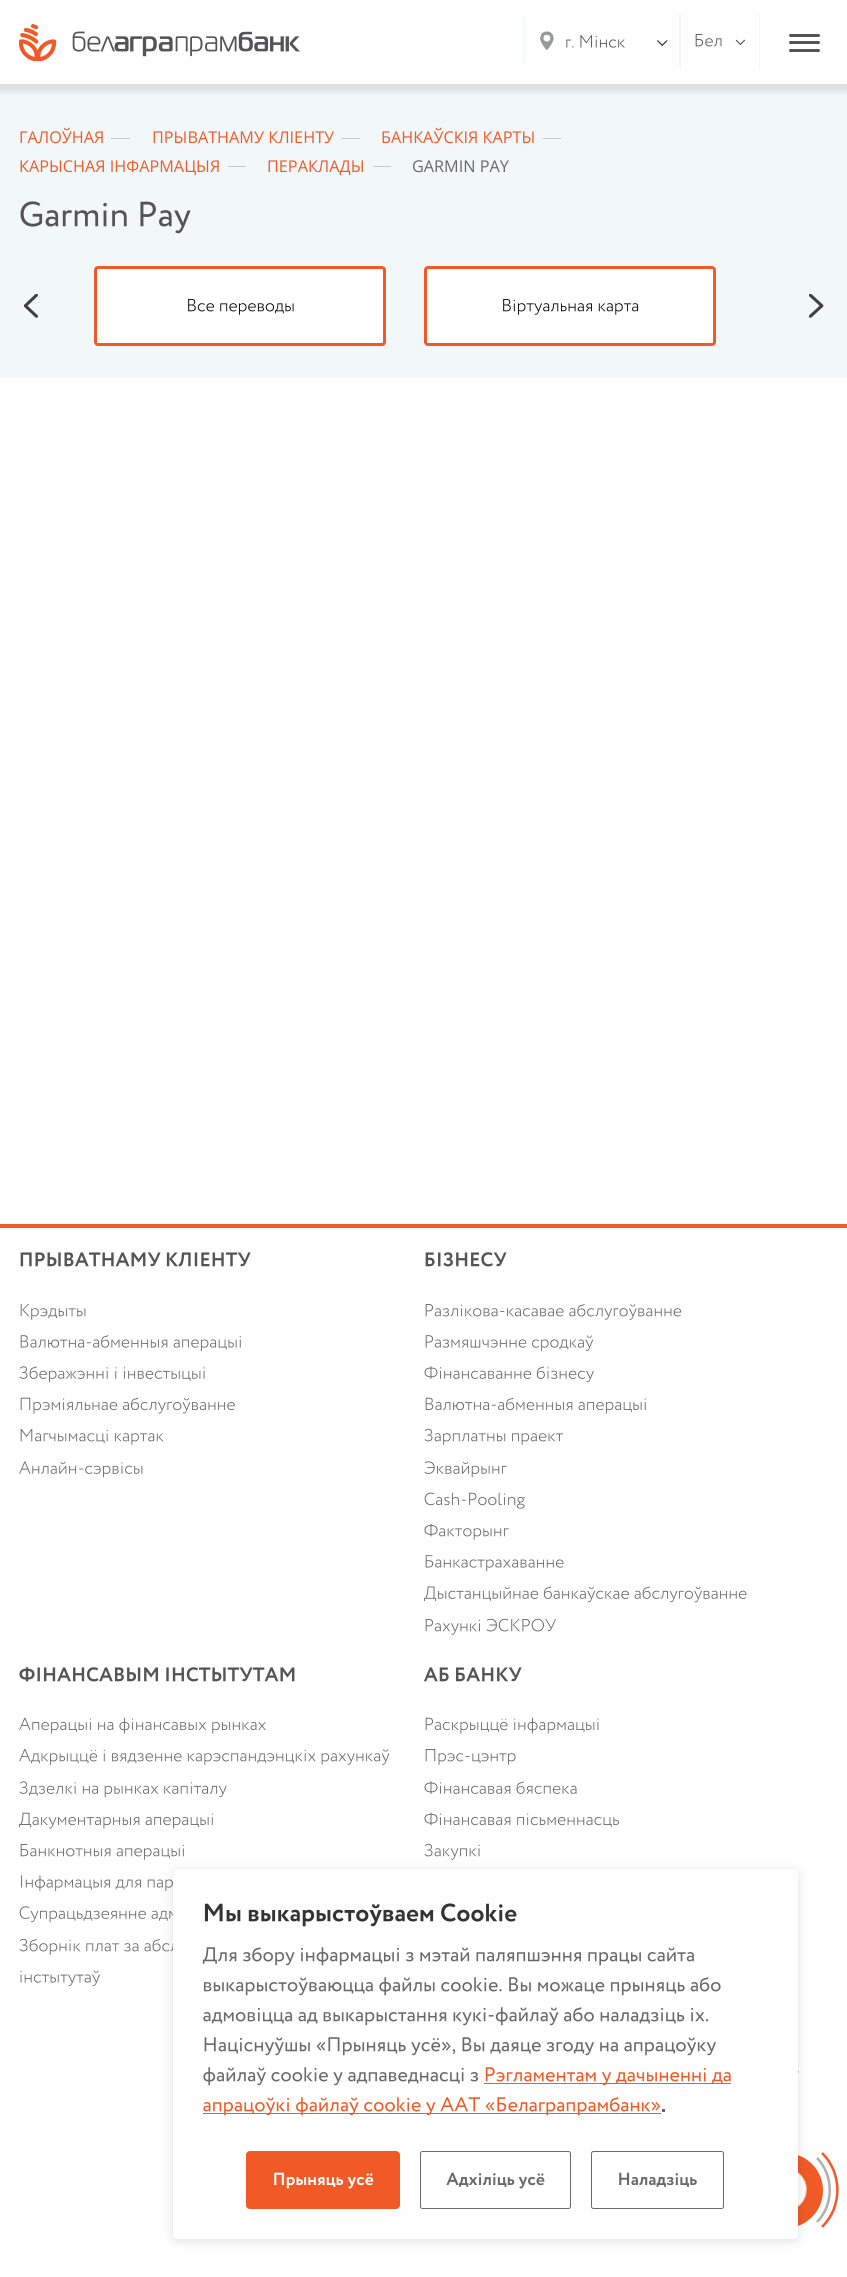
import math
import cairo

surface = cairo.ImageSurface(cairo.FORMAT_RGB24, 847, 2277)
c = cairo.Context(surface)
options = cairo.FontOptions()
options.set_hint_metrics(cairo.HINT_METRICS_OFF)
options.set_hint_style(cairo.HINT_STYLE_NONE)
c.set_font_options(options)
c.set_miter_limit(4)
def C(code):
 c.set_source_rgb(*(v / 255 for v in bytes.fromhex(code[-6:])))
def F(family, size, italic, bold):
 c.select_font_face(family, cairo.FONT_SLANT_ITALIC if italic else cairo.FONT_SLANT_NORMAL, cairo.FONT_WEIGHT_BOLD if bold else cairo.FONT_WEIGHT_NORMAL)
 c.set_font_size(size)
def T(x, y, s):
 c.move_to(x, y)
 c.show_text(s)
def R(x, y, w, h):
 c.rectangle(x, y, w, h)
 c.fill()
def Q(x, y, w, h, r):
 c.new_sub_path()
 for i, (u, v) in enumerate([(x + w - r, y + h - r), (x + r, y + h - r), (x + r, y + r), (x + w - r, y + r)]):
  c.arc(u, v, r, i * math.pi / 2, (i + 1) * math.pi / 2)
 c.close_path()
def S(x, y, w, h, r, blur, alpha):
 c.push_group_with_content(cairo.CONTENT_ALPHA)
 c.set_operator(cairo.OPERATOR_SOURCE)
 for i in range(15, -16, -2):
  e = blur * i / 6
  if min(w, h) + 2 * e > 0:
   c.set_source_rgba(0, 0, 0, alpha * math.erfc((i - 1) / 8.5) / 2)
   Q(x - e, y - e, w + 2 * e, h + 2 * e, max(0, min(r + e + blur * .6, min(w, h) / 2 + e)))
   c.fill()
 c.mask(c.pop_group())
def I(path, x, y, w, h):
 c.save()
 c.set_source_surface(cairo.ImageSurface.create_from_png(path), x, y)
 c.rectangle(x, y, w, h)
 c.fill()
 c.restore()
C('ffffff')
c.paint()
C('f2f7f9')
R(0,85,847,293)
c.save()
c.rectangle(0,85,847,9)
c.clip()
C('000000')
S(-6,-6,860,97,0,3,.1)
c.restore()
C('dedede')
R(0,84,847,1)
I('1.png',19,24,281,37)
C('f2f7f9')
R(679,14,1,52)
R(524,14,1,52)
I('2.png',540,31,14,19)
I('3.png',566,35,59,13)
I('4.png',657,40,11,6)
R(759,14,1,56)
R(680,14,1,56)
I('5.png',695,34,27,13)
I('6.png',735,39,10,6)
C('545456')
Q(789,34,31,3,1.5)
c.fill()
Q(789,41,31,3,1.5)
c.fill()
Q(789,49,31,3,1.5)
c.fill()
F('Open Sans',16.25,0,0)
C('f15a26')
T(19,143,'ГАЛОЎНАЯ')
C('c5c8ca')
R(111,138,19,1)
C('f15a26')
T(152,143,'ПРЫВАТНАМУ КЛІЕНТУ')
C('c5c8ca')
R(341,138,19,1)
C('f15a26')
T(381,143,'БАНКАЎСКІЯ КАРТЫ')
C('c5c8ca')
R(543,138,18,1)
C('f15a26')
T(19,172,'КАРЫСНАЯ ІНФАРМАЦЫЯ')
C('c5c8ca')
R(228,166,18,1)
C('f15a26')
T(267,172,'ПЕРАКЛАДЫ')
C('c5c8ca')
R(373,166,18,1)
C('696969')
T(412,172,'GARMIN PAY')
I('7.png',20,201,171,33)
I('8.png',24,294,14,24)
C('ffffff')
Q(95.5,267.5,289,77,2.5)
c.fill_preserve()
C('f15a26')
c.set_line_width(3)
c.stroke()
I('9.png',188,298,106,17)
C('ffffff')
Q(425.5,267.5,289,77,2.5)
c.fill_preserve()
C('f15a26')
c.stroke()
I('10.png',503,298,136,17)
I('11.png',809,294,15,24)
R(0,1224,847,4)
I('12.png',20,1252,231,15)
I('13.png',20,1304,66,16)
I('14.png',20,1335,221,16)
I('15.png',19,1366,186,17)
I('16.png',20,1397,215,17)
I('17.png',20,1429,144,16)
I('18.png',19,1461,124,17)
I('19.png',425,1252,82,15)
I('20.png',425,1303,257,17)
I('21.png',425,1335,169,16)
I('22.png',424,1366,170,17)
I('23.png',425,1397,221,17)
I('24.png',424,1428,140,17)
I('25.png',424,1461,83,17)
I('26.png',424,1492,101,17)
I('27.png',424,1523,85,17)
I('28.png',425,1555,139,16)
I('29.png',424,1586,323,17)
I('30.png',425,1618,131,17)
I('31.png',19,1667,276,15)
I('32.png',19,1717,247,17)
I('33.png',19,1748,371,17)
I('34.png',19,1781,208,17)
I('35.png',19,1812,194,17)
I('36.png',20,1844,164,16)
I('37.png',21,1875,152,16)
I('38.png',19,1906,154,17)
I('39.png',19,1938,154,17)
I('40.png',20,1970,80,16)
I('41.png',424,1667,98,15)
I('42.png',425,1717,174,17)
I('43.png',425,1749,91,16)
I('44.png',424,1781,153,13)
I('45.png',424,1812,195,15)
I('46.png',424,1843,56,17)
I('47.png',798,2071,1,2)
c.arc(785.5,2190.5,37.5,0,2 * math.pi)
c.fill()
I('59.png',798,2172,9,36)
c.new_path()
c.move_to(822,2153)
c.curve_to(842.5,2173,842.5,2207,822,2227)
c.set_line_width(2.5)
c.stroke()
c.new_path()
c.move_to(817,2158)
c.curve_to(834,2175.5,834,2204.5,817,2222)
C('aeb0b0')
c.stroke()
C('000000')
S(173,1871,625,370,5,6,.12)
C('ffffff')
Q(173,1869,625,370,5)
c.fill()
I('48.png',204,1903,313,24)
I('49.png',202,1947,492,19)
I('50.png',203,1977,518,19)
I('51.png',203,2007,506,19)
I('52.png',204,2037,512,19)
I('53.png',203,2067,275,19)
C('f15a26')
R(484,2083,247,1)
I('54.png',485,2067,246,19)
R(203,2113,458,1)
I('55.png',203,2097,458,19)
C('696969')
R(662,2109,3,3)
C('f15a26')
Q(246.5,2151.5,153,57,3.5)
c.fill_preserve()
c.set_line_width(1)
c.stroke()
I('56.png',274,2172,100,17)
Q(420.5,2151.5,150,57,2)
C('696969')
c.stroke()
I('57.png',446,2172,99,17)
Q(591.5,2151.5,132,57,2)
c.stroke()
I('58.png',619,2172,78,15)
surface.write_to_png('o.png')
